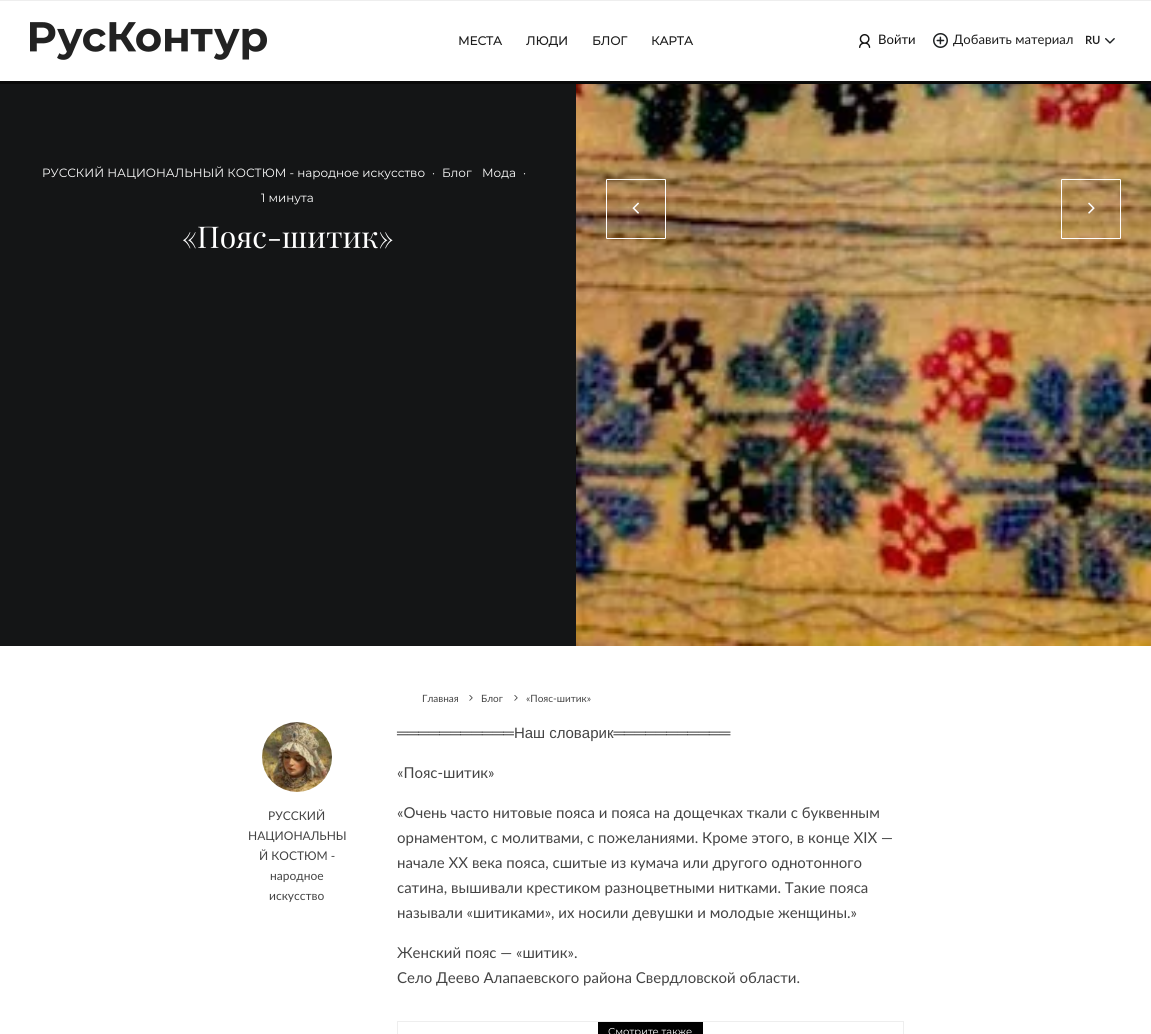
import math
import cairo

surface = cairo.ImageSurface(cairo.FORMAT_RGB24, 1151, 1034)
c = cairo.Context(surface)
options = cairo.FontOptions()
options.set_hint_metrics(cairo.HINT_METRICS_OFF)
options.set_hint_style(cairo.HINT_STYLE_NONE)
c.set_font_options(options)
c.set_miter_limit(4)
def C(code):
 c.set_source_rgb(*(v / 255 for v in bytes.fromhex(code[-6:])))
def F(family, size, italic, bold):
 c.select_font_face(family, cairo.FONT_SLANT_ITALIC if italic else cairo.FONT_SLANT_NORMAL, cairo.FONT_WEIGHT_BOLD if bold else cairo.FONT_WEIGHT_NORMAL)
 c.set_font_size(size)
def T(x, y, s):
 c.move_to(x, y)
 c.show_text(s)
def R(x, y, w, h):
 c.rectangle(x, y, w, h)
 c.fill()
def Q(x, y, w, h, r):
 c.new_sub_path()
 for i, (u, v) in enumerate([(x + w - r, y + h - r), (x + r, y + h - r), (x + r, y + r), (x + w - r, y + r)]):
  c.arc(u, v, r, i * math.pi / 2, (i + 1) * math.pi / 2)
 c.close_path()
def I(path, x, y, w, h):
 c.save()
 c.set_source_surface(cairo.ImageSurface.create_from_png(path), x, y)
 c.rectangle(x, y, w, h)
 c.fill()
 c.restore()
C('ffffff')
c.paint()
C('eeeeee')
R(0,0,1151,1)
C('0a0a0a')
R(0,81,1151,3)
I('1.png',30,22,237,38)
F('Montserrat',12,0,1)
C('1e1e1e')
T(458,45,'МЕСТА')
T(526,45,'ЛЮДИ')
T(592,45,'БЛОГ')
T(651,45,'КАРТА')
I('2.png',859,34,12,14)
F('Lato',13.1,0,0)
C('111111')
T(878,44,'Войти')
I('3.png',933,33,15,15)
C('1e1e1e')
T(953,44,'Добавить материал')
F('Lato',11,0,1)
T(1085,44,'RU')
I('4.png',1105,38,10,6)
C('141516')
R(0,84,576,562)
F('Montserrat',12,0,0)
C('ffffff')
T(42,177,'РУССКИЙ НАЦИОНАЛЬНЫЙ КОСТЮМ - народное искусство')
T(432,177,'·')
T(442,177,'Блог')
T(482,177,'Мода')
T(523,177,'·')
T(261,202,'1 минута')
F('Playfair Display',30,0,0)
T(182,248,'«Пояс-шитик»')
I('5.png',576,84,575,562)
Q(606.5,179.5,59,59,.5)
c.set_line_width(1)
c.stroke()
I('6.png',632,202,7,12)
Q(1061.5,179.5,59,59,.5)
c.stroke()
I('7.png',1088,202,7,12)
F('Lato',10,0,0)
C('444444')
T(422,702,'Главная')
I('8.png',469,695,4,6)
T(481,702,'Блог')
I('8.png',514,695,4,6)
T(526,702,'«Пояс-шитик»')
I('9.png',262,722,70,70)
F('Lato',12,0,0)
T(268,820,'РУССКИЙ')
T(248,840,'НАЦИОНАЛЬНЫ')
T(259,860,'Й КОСТЮМ -')
T(270,880,'народное')
T(269,900,'искусство')
F('Liberation Sans',15,0,0)
T(397,738,'═══════════Наш словарик═══════════')
F('Lato',15,0,0)
T(397,778,'«Пояс-шитик»')
T(397,818,'«Очень часто нитовые пояса и пояса на дощечках ткали с буквенным')
T(397,843,'орнаментом, с молитвами, с пожеланиями. Кроме этого, в конце XIX —')
T(397,868,'начале XX века пояса, сшитые из кумача или другого однотонного')
T(397,893,'сатина, вышивали крестиком разноцветными нитками. Такие пояса')
T(397,918,'называли «шитиками», их носили девушки и молодые женщины.»')
T(397,958,'Женский пояс — «шитик».')
T(397,983,'Cело Деево Алапаевского района Свердловской области.')
c.rectangle(397.5,1021.5,506,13)
C('eeeeee')
c.stroke()
C('000000')
R(598,1022,105,12)
F('Montserrat',10,0,0)
C('ffffff')
T(608,1035,'Смотрите также')
surface.write_to_png('o.png')
